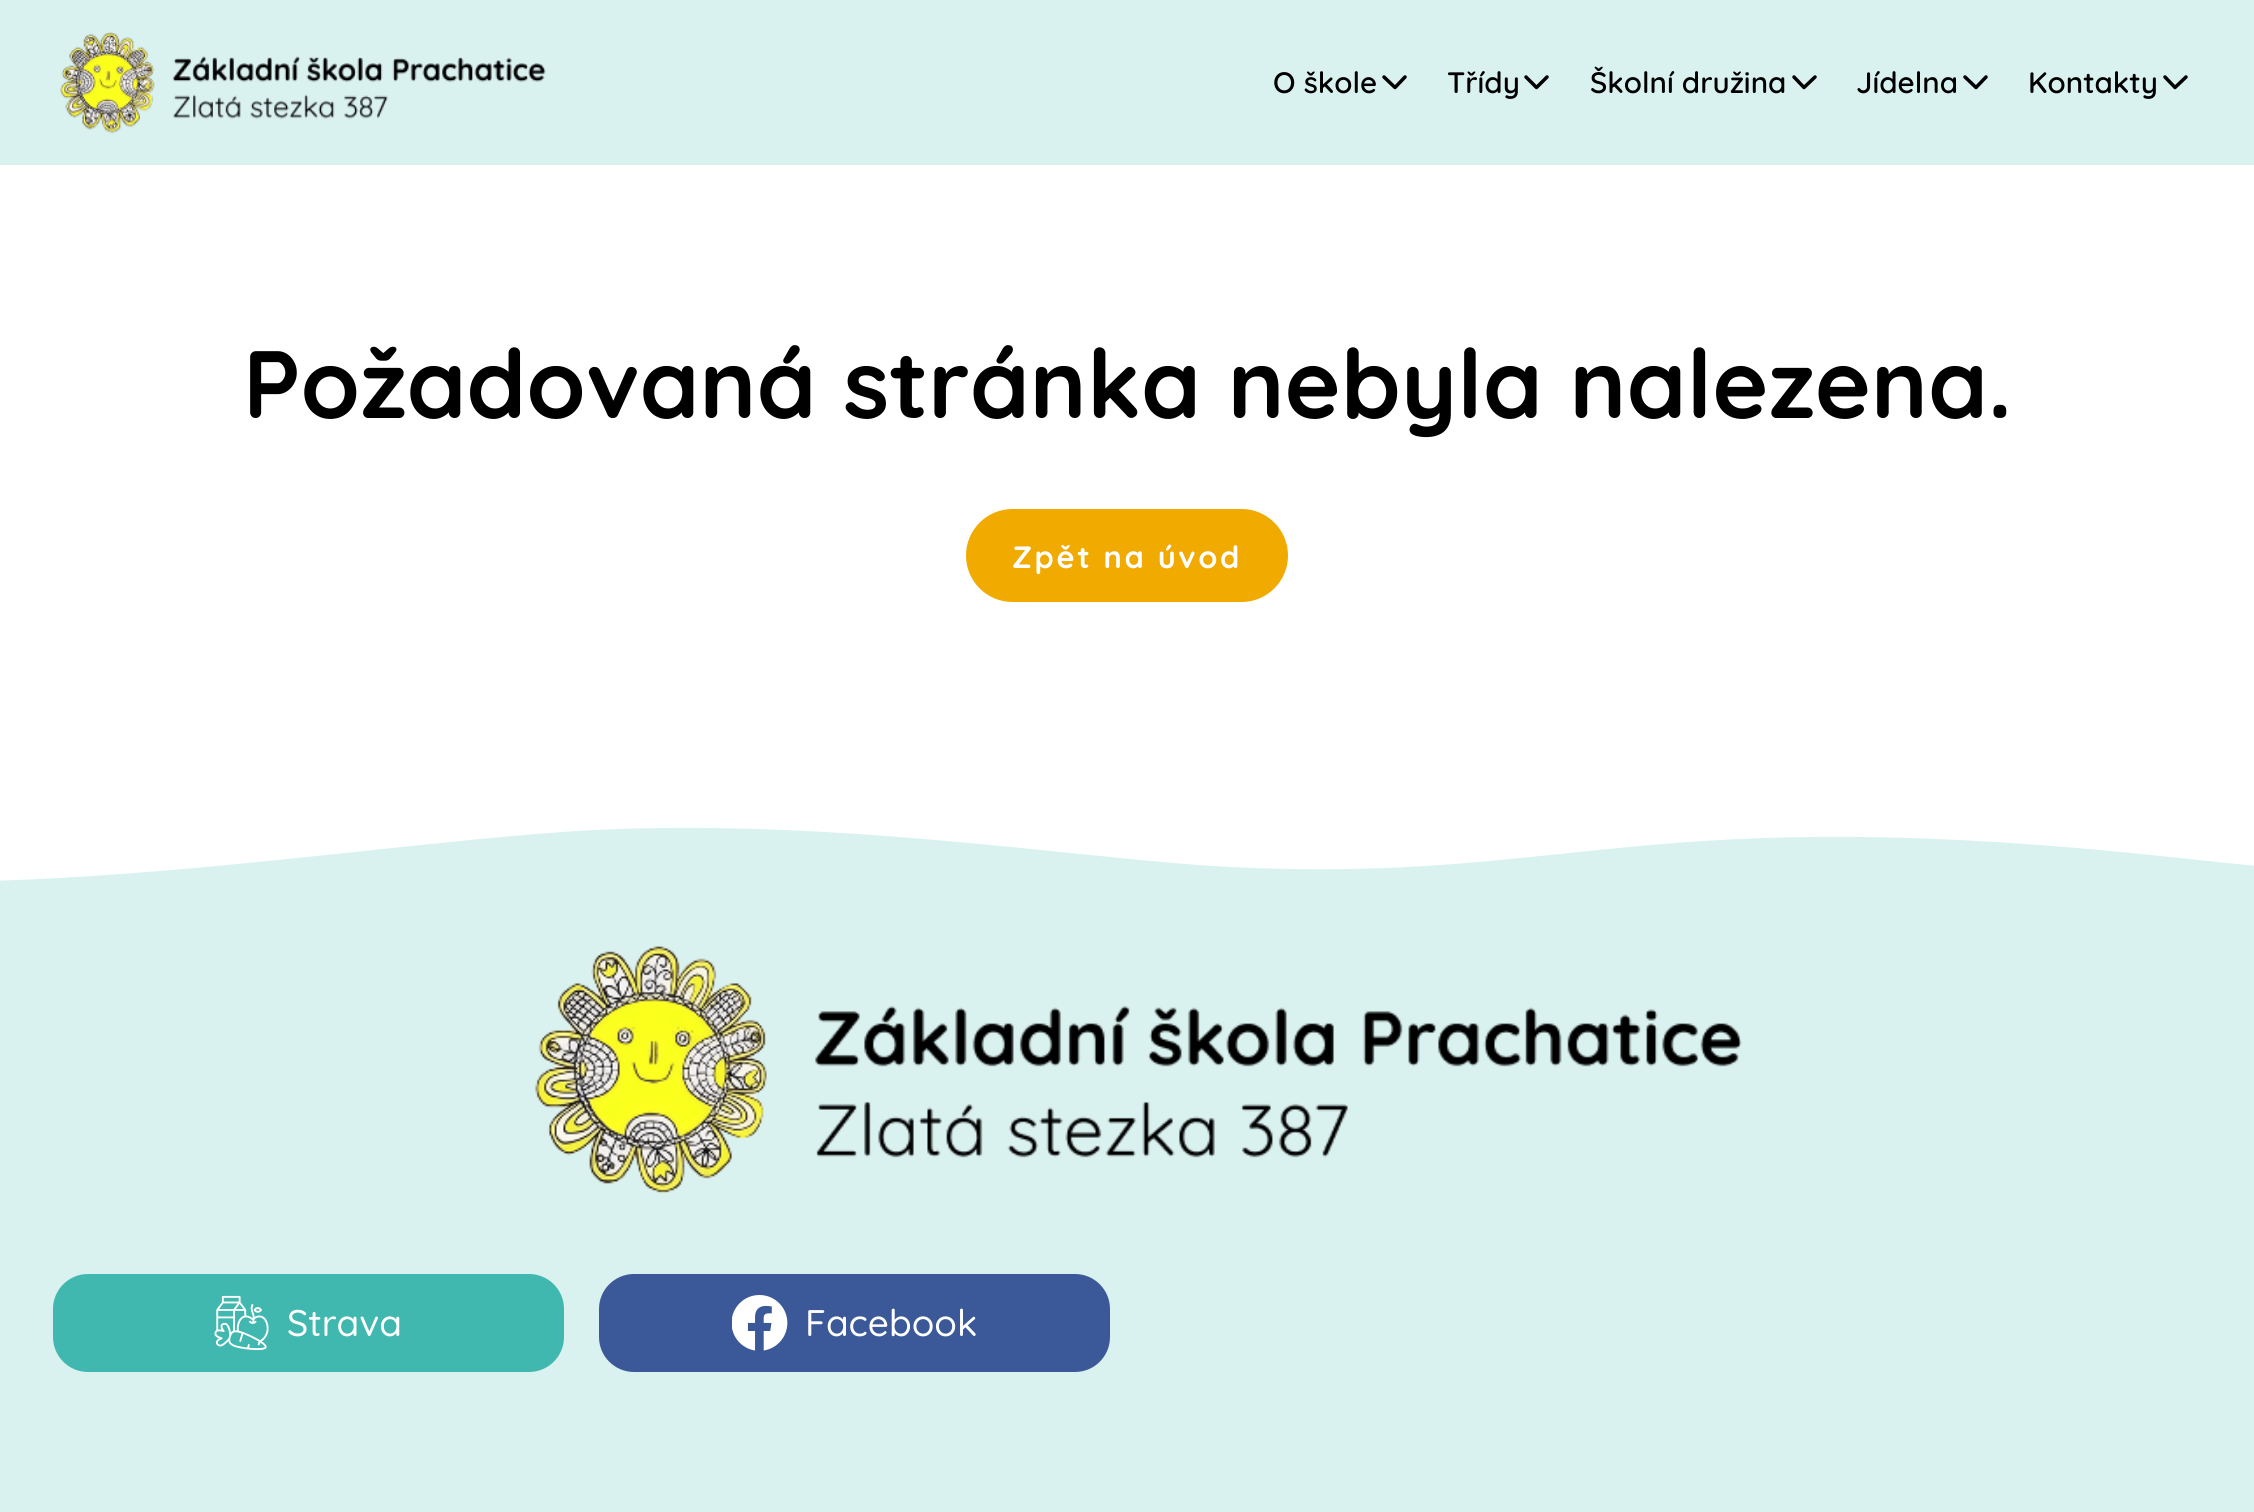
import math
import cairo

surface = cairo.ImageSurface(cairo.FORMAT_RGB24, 2254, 1512)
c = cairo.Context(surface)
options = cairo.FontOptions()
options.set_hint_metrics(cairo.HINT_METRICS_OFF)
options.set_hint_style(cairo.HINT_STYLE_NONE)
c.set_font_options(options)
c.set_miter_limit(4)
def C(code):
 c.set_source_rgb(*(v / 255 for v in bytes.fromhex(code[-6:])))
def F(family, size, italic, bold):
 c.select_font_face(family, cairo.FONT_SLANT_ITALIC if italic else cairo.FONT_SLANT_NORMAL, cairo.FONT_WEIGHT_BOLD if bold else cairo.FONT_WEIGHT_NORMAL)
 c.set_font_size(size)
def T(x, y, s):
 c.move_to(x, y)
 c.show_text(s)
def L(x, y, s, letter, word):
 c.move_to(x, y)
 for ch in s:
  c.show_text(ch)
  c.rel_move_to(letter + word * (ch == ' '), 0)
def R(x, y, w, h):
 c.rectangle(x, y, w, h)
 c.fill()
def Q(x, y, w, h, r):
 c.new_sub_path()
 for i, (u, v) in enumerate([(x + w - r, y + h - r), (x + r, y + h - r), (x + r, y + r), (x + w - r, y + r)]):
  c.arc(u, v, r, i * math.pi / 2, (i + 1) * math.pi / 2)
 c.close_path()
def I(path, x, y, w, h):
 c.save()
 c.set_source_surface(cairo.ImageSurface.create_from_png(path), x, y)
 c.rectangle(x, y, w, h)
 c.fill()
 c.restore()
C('ffffff')
c.paint()
C('d9f1ef')
R(0,0,2254,165)
I('1.png',60,32,486,102)
F('Quicksand SemiBold',29.5,0,0)
C('000000')
T(1273,93,'O škole')
c.new_path()
c.move_to(1384,77)
c.line_to(1395,87.5)
c.line_to(1405,77)
c.set_line_width(3.5)
c.set_line_cap(cairo.LINE_CAP_ROUND)
c.set_line_join(cairo.LINE_JOIN_ROUND)
c.stroke()
T(1447,93,'Třídy')
c.new_path()
c.move_to(1526,77)
c.line_to(1536.5,87.5)
c.line_to(1547,77)
c.stroke()
T(1590,93,'Školní družina')
c.new_path()
c.move_to(1794,77)
c.line_to(1804,87.5)
c.line_to(1815,77)
c.stroke()
T(1856,93,'Jídelna')
c.new_path()
c.move_to(1965,77)
c.line_to(1976,87.5)
c.line_to(1986,77)
c.stroke()
T(2028,93,'Kontakty')
c.new_path()
c.move_to(2165,77)
c.line_to(2175,87.5)
c.line_to(2186,77)
c.stroke()
F('Quicksand',95.5,0,1)
T(243,418,'Požadovaná stránka nebyla nalezena.')
C('f0aa00')
Q(968,511,318,89,44.5)
c.fill_preserve()
c.set_line_width(4)
c.set_line_cap(cairo.LINE_CAP_BUTT)
c.set_line_join(cairo.LINE_JOIN_MITER)
c.stroke()
F('Quicksand',30.75,0,1)
C('ffffff')
L(1012,568,'Zpět na úvod',2.6,0)
C('d9f1ef')
R(0,827,2254,685)
c.save()
c.rectangle(0,760,2254,122)
c.clip()
C('ffffff')
c.new_path()
c.move_to(2189,859)
c.curve_to(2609,905,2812,871,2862,843)
c.line_to(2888,594)
c.line_to(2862,504)
c.line_to(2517,445)
c.line_to(-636,488)
c.curve_to(-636,581,-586,782,-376,846)
c.curve_to(-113,926,307,850,562,832)
c.curve_to(816,814,1086,860,1230,867)
c.curve_to(1579,884,1638,798,2189,859)
c.close_path()
c.fill()
c.restore()
I('2.png',535,946,1207,248)
C('40b8af')
Q(53,1274,511,98,35)
c.fill()
I('3.png',214,1295,55,56)
F('Quicksand Medium',37,0,0)
C('ffffff')
T(287,1336,'Strava')
C('3b5998')
Q(599,1274,511,98,35)
c.fill()
I('4.png',732,1295,56,56)
C('ffffff')
T(805,1336,'Facebook')
surface.write_to_png('o.png')
